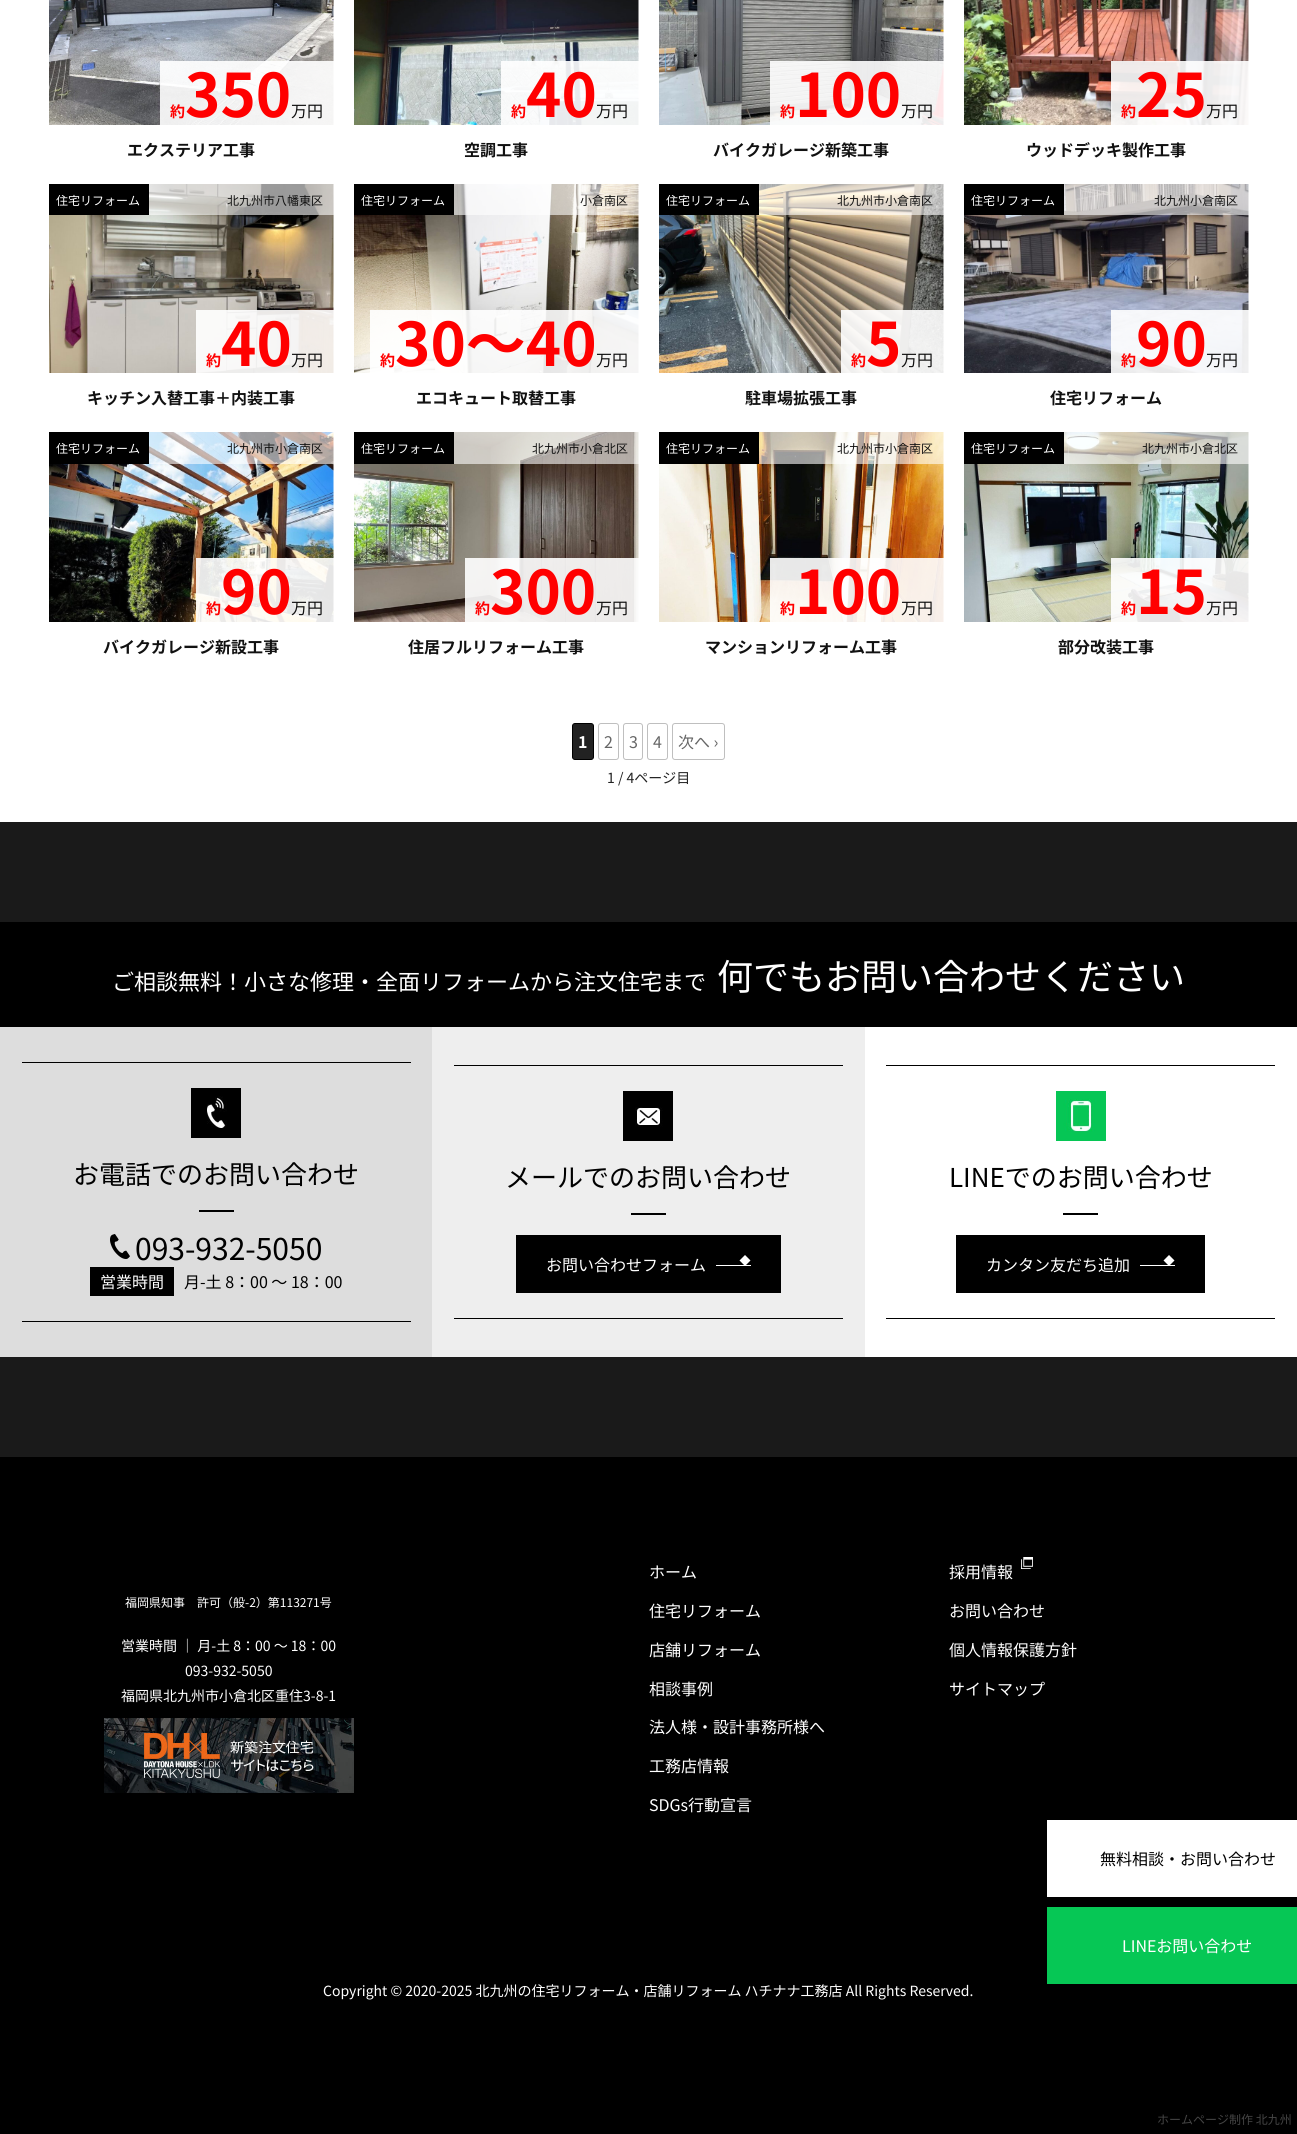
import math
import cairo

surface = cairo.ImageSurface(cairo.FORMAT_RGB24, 1297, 2134)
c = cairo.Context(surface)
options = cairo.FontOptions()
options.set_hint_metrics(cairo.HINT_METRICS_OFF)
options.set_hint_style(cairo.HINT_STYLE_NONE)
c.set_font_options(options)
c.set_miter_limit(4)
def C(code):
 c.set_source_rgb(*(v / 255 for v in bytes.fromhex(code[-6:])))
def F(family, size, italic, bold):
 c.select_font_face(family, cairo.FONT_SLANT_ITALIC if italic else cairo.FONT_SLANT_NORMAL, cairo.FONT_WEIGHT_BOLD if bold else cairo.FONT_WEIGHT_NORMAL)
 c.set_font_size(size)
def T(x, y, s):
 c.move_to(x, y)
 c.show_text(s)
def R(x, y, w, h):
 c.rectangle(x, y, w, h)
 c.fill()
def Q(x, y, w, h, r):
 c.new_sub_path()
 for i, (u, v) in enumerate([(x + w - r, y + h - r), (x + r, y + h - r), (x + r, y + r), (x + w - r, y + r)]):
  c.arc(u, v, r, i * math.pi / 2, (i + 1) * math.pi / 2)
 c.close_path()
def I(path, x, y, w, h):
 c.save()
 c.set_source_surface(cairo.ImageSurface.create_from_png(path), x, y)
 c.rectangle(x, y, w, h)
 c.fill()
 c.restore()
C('ffffff')
c.paint()
I('1.png',49,0,285,125)
c.set_source_rgba(1,1,1,0.9)
R(160,61,174,64)
F('Noto Sans JP',15,0,1)
C('ff0000')
T(170,117,'約')
F('Noto Sans JP',60,0,1)
T(185,117,'350')
F('Noto Sans JP',16,0,0)
C('111111')
T(291,117,'万円')
F('Noto Sans JP',16,0,1)
T(127,156,'エクステリア工事')
I('2.png',354,0,285,125)
c.set_source_rgba(1,1,1,0.9)
R(501,61,138,64)
F('Noto Sans JP',15,0,1)
C('ff0000')
T(511,117,'約')
F('Noto Sans JP',60,0,1)
T(526,117,'40')
F('Noto Sans JP',16,0,0)
C('111111')
T(596,117,'万円')
F('Noto Sans JP',16,0,1)
T(464,156,'空調工事')
I('3.png',659,0,285,125)
c.set_source_rgba(1,1,1,0.9)
R(770,61,174,64)
F('Noto Sans JP',15,0,1)
C('ff0000')
T(780,117,'約')
F('Noto Sans JP',60,0,1)
T(795,117,'100')
F('Noto Sans JP',16,0,0)
C('111111')
T(901,117,'万円')
F('Noto Sans JP',16,0,1)
T(713,156,'バイクガレージ新築工事')
I('4.png',964,0,285,125)
c.set_source_rgba(1,1,1,0.9)
R(1111,61,138,64)
F('Noto Sans JP',15,0,1)
C('ff0000')
T(1121,117,'約')
F('Noto Sans JP',60,0,1)
T(1136,117,'25')
F('Noto Sans JP',16,0,0)
C('111111')
T(1206,117,'万円')
F('Noto Sans JP',16,0,1)
T(1026,156,'ウッドデッキ製作工事')
I('5.png',49,184,285,189)
C('000000')
R(49,184,100,31)
F('Noto Sans JP',12,0,0)
C('ffffff')
T(56,205,'住宅リフォーム')
c.set_source_rgba(1,1,1,0.6)
R(149,184,185,31)
C('111111')
T(227,205,'北九州市八幡東区')
c.set_source_rgba(1,1,1,0.9)
R(196,310,138,63)
F('Noto Sans JP',15,0,1)
C('ff0000')
T(206,366,'約')
F('Noto Sans JP',60,0,1)
T(221,366,'40')
F('Noto Sans JP',16,0,0)
C('111111')
T(291,366,'万円')
F('Noto Sans JP',16,0,1)
T(87,404,'キッチン入替工事＋内装工事')
I('6.png',354,184,285,189)
C('000000')
R(354,184,100,31)
F('Noto Sans JP',12,0,0)
C('ffffff')
T(361,205,'住宅リフォーム')
c.set_source_rgba(1,1,1,0.6)
R(454,184,185,31)
C('111111')
T(580,205,'小倉南区')
c.set_source_rgba(1,1,1,0.9)
R(370,310,269,63)
F('Noto Sans JP',15,0,1)
C('ff0000')
T(380,366,'約')
F('Noto Sans JP',60,0,1)
T(395,366,'30～40')
F('Noto Sans JP',16,0,0)
C('111111')
T(596,366,'万円')
F('Noto Sans JP',16,0,1)
T(416,404,'エコキュート取替工事')
I('7.png',659,184,285,189)
C('000000')
R(659,184,100,31)
F('Noto Sans JP',12,0,0)
C('ffffff')
T(666,205,'住宅リフォーム')
c.set_source_rgba(1,1,1,0.6)
R(759,184,185,31)
C('111111')
T(837,205,'北九州市小倉南区')
c.set_source_rgba(1,1,1,0.9)
R(841,310,103,63)
F('Noto Sans JP',15,0,1)
C('ff0000')
T(851,366,'約')
F('Noto Sans JP',60,0,1)
T(866,366,'5')
F('Noto Sans JP',16,0,0)
C('111111')
T(901,366,'万円')
F('Noto Sans JP',16,0,1)
T(745,404,'駐車場拡張工事')
I('8.png',964,184,285,189)
C('000000')
R(964,184,100,31)
F('Noto Sans JP',12,0,0)
C('ffffff')
T(971,205,'住宅リフォーム')
c.set_source_rgba(1,1,1,0.6)
R(1064,184,185,31)
C('111111')
T(1154,205,'北九州小倉南区')
c.set_source_rgba(1,1,1,0.9)
R(1111,310,138,63)
F('Noto Sans JP',15,0,1)
C('ff0000')
T(1121,366,'約')
F('Noto Sans JP',60,0,1)
T(1136,366,'90')
F('Noto Sans JP',16,0,0)
C('111111')
T(1206,366,'万円')
F('Noto Sans JP',16,0,1)
T(1050,404,'住宅リフォーム')
I('9.png',49,432,285,190)
C('000000')
R(49,432,100,32)
F('Noto Sans JP',12,0,0)
C('ffffff')
T(56,453,'住宅リフォーム')
c.set_source_rgba(1,1,1,0.6)
R(149,432,185,32)
C('111111')
T(227,453,'北九州市小倉南区')
c.set_source_rgba(1,1,1,0.9)
R(196,558,138,64)
F('Noto Sans JP',15,0,1)
C('ff0000')
T(206,614,'約')
F('Noto Sans JP',60,0,1)
T(221,614,'90')
F('Noto Sans JP',16,0,0)
C('111111')
T(291,614,'万円')
F('Noto Sans JP',16,0,1)
T(103,653,'バイクガレージ新設工事')
I('10.png',354,432,285,190)
C('000000')
R(354,432,100,32)
F('Noto Sans JP',12,0,0)
C('ffffff')
T(361,453,'住宅リフォーム')
c.set_source_rgba(1,1,1,0.6)
R(454,432,185,32)
C('111111')
T(532,453,'北九州市小倉北区')
c.set_source_rgba(1,1,1,0.9)
R(465,558,174,64)
F('Noto Sans JP',15,0,1)
C('ff0000')
T(475,614,'約')
F('Noto Sans JP',60,0,1)
T(490,614,'300')
F('Noto Sans JP',16,0,0)
C('111111')
T(596,614,'万円')
F('Noto Sans JP',16,0,1)
T(408,653,'住居フルリフォーム工事')
I('11.png',659,432,285,190)
C('000000')
R(659,432,100,32)
F('Noto Sans JP',12,0,0)
C('ffffff')
T(666,453,'住宅リフォーム')
c.set_source_rgba(1,1,1,0.6)
R(759,432,185,32)
C('111111')
T(837,453,'北九州市小倉南区')
c.set_source_rgba(1,1,1,0.9)
R(770,558,174,64)
F('Noto Sans JP',15,0,1)
C('ff0000')
T(780,614,'約')
F('Noto Sans JP',60,0,1)
T(795,614,'100')
F('Noto Sans JP',16,0,0)
C('111111')
T(901,614,'万円')
F('Noto Sans JP',16,0,1)
T(705,653,'マンションリフォーム工事')
I('12.png',964,432,285,190)
C('000000')
R(964,432,100,32)
F('Noto Sans JP',12,0,0)
C('ffffff')
T(971,453,'住宅リフォーム')
c.set_source_rgba(1,1,1,0.6)
R(1064,432,185,32)
C('111111')
T(1142,453,'北九州市小倉北区')
c.set_source_rgba(1,1,1,0.9)
R(1111,558,138,64)
F('Noto Sans JP',15,0,1)
C('ff0000')
T(1121,614,'約')
F('Noto Sans JP',60,0,1)
T(1136,614,'15')
F('Noto Sans JP',16,0,0)
C('111111')
T(1206,614,'万円')
F('Noto Sans JP',16,0,1)
T(1058,653,'部分改装工事')
C('222222')
Q(572.5,723.5,21,36,2.5)
c.fill_preserve()
C('000000')
c.set_line_width(1)
c.stroke()
C('ffffff')
T(578,748,'1')
Q(598.5,723.5,20,36,2.5)
C('bfbfbf')
c.stroke()
F('Noto Sans JP',16,0,0)
C('666666')
T(604,748,'2')
Q(623.5,723.5,19,36,2.5)
C('bfbfbf')
c.stroke()
C('666666')
T(629,748,'3')
Q(647.5,723.5,20,36,2.5)
C('bfbfbf')
c.stroke()
C('666666')
T(653,748,'4')
Q(672.5,723.5,52,36,2.5)
C('bfbfbf')
c.stroke()
C('666666')
T(678,748,'次へ ›')
F('Noto Sans JP',14,0,0)
C('222222')
T(607,783,'1 / 4ページ目')
C('1a1a1a')
R(0,822,1297,635)
C('000000')
R(0,922,1297,105)
F('Noto Sans JP',22,0,0)
C('ffffff')
T(112,990,'ご相談無料！小さな修理・全面リフォームから注文住宅まで')
F('Noto Sans JP',36,0,0)
T(717,990,'何でもお問い合わせください')
C('dddddd')
R(0,1027,432,330)
C('000000')
R(22,1062,389,1)
R(22,1321,389,1)
I('13.png',191,1088,50,50)
F('Noto Sans JP',26,0,0)
T(73,1184,'お電話でのお問い合わせ')
R(199,1210,35,2)
I('14.png',110,1234,20,25)
F('Noto Sans JP',30,0,0)
T(135,1260,'093-932-5050')
R(90,1267,84,29)
F('Noto Sans JP',16,0,0)
C('ffffff')
T(100,1288,'営業時間')
C('000000')
T(184,1288,'月-土 8：00 ～ 18：00')
C('eeeeee')
R(432,1027,433,330)
C('000000')
R(454,1065,389,1)
R(454,1318,389,1)
I('15.png',623,1091,50,50)
F('Noto Sans JP',26,0,0)
T(505,1187,'メールでのお問い合わせ')
R(631,1213,35,2)
R(516,1235,265,58)
F('Noto Sans JP',16,0,0)
C('ffffff')
T(546,1271,'お問い合わせフォーム')
R(716,1265,35,1)
c.new_path()
c.move_to(745,1255)
c.line_to(750.5,1260.5)
c.line_to(745,1266)
c.line_to(739.5,1260.5)
c.close_path()
c.fill()
R(865,1027,432,330)
C('000000')
R(886,1065,389,1)
R(886,1318,389,1)
I('16.png',1056,1091,50,50)
F('Noto Sans JP',26,0,0)
T(949,1187,'LINEでのお問い合わせ')
R(1063,1213,35,2)
R(956,1235,249,58)
F('Noto Sans JP',16,0,0)
C('ffffff')
T(986,1271,'カンタン友だち追加')
R(1140,1265,35,1)
c.new_path()
c.move_to(1169,1255)
c.line_to(1174.5,1260.5)
c.line_to(1169,1266)
c.line_to(1163.5,1260.5)
c.close_path()
c.fill()
C('000000')
R(0,1457,1297,677)
F('Noto Sans JP',12,0,0)
C('ffffff')
T(125,1607,'福岡県知事　許可（般-2）第113271号')
F('Noto Sans JP',14,0,0)
T(121,1651,'営業時間 ｜ 月-土 8：00 ～ 18：00')
T(185,1676,'093-932-5050')
T(121,1701,'福岡県北九州市小倉北区重住3-8-1')
I('17.png',104,1718,250,75)
F('Noto Sans JP',16,0,0)
T(649,1578,'ホーム')
T(649,1617,'住宅リフォーム')
T(649,1656,'店舗リフォーム')
T(649,1695,'相談事例')
T(649,1733,'法人様・設計事務所様へ')
T(649,1772,'工務店情報')
T(649,1811,'SDGs行動宣言')
T(949,1578,'採用情報')
I('18.png',1021,1557,12,12)
T(949,1617,'お問い合わせ')
T(949,1656,'個人情報保護方針')
T(949,1695,'サイトマップ')
F('Noto Sans JP',14,0,0)
T(323,1996,'Copyright © 2020-2025 北九州の住宅リフォーム・店舗リフォーム ハチナナ工務店 All Rights Reserved.')
F('Noto Sans JP',12,0,0)
C('444444')
T(1157,2124,'ホームページ制作 北九州')
C('ffffff')
R(1047,1820,250,77)
F('Noto Sans JP',16,0,0)
C('000000')
T(1100,1865,'無料相談・お問い合わせ')
C('06c755')
R(1047,1907,250,77)
C('ffffff')
T(1122,1952,'LINEお問い合わせ')
surface.write_to_png('o.png')
